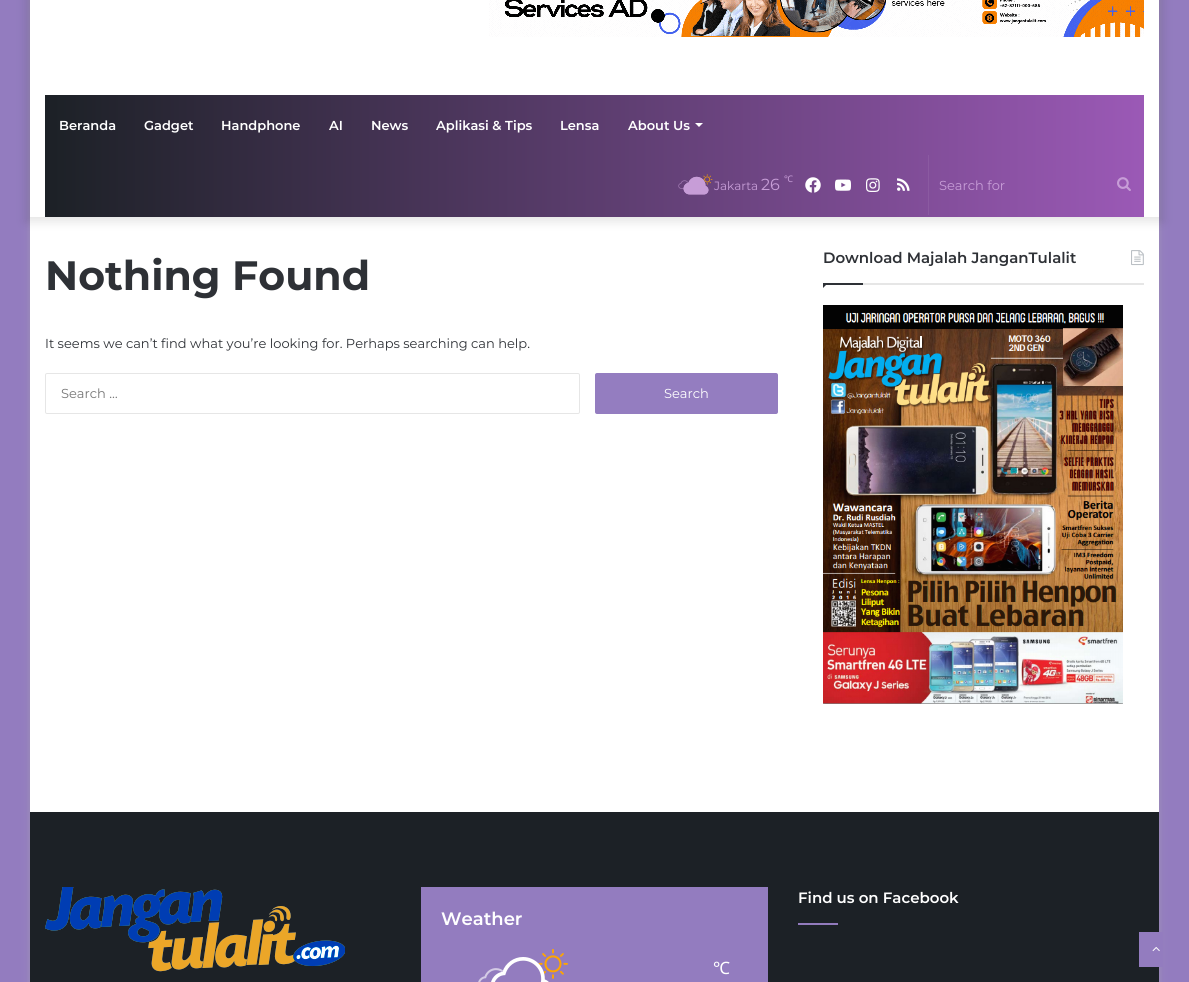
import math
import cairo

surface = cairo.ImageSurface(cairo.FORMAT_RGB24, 1189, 982)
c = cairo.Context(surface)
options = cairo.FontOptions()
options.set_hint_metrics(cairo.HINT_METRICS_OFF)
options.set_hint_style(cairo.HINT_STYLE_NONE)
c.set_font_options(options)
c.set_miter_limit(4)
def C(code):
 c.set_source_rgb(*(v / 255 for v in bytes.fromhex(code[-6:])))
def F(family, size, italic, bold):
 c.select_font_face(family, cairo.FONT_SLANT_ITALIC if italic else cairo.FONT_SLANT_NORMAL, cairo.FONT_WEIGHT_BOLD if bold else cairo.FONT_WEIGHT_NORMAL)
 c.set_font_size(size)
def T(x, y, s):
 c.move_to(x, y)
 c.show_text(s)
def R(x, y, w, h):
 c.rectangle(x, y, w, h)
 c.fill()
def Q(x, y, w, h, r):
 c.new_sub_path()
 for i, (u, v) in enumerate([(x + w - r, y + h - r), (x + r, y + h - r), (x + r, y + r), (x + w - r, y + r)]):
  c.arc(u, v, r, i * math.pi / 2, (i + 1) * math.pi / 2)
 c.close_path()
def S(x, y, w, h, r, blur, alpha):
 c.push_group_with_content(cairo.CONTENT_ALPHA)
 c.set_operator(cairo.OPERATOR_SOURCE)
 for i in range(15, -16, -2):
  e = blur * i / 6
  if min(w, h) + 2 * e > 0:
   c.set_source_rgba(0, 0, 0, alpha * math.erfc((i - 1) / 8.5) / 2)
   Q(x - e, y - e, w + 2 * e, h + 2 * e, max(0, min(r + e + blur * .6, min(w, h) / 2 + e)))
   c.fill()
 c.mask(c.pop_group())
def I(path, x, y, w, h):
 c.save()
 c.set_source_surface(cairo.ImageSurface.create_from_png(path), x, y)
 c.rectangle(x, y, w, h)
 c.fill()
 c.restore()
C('937cbf')
c.paint()
C('ababab')
S(30,-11,1129,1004,0,3.5,.5)
C('ffffff')
R(30,0,1129,812)
c.save()
c.set_fill_rule(cairo.FILL_RULE_EVEN_ODD)
c.new_path()
c.move_to(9,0)
c.line_to(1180,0)
c.line_to(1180,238)
c.line_to(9,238)
c.close_path()
c.move_to(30,-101)
c.line_to(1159,-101)
c.line_to(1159,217)
c.line_to(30,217)
c.close_path()
c.clip()
C('000000')
S(25,-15,1139,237,0,5,.1)
c.restore()
I('1.png',489,0,655,37)
gradient = cairo.LinearGradient(45,156,1144,156)
gradient.add_color_stop_rgba(0,0.11,0.129,0.149,1)
gradient.add_color_stop_rgba(1,0.608,0.349,0.714,1)
c.set_source(gradient)
R(45,95,1099,122)
F('Montserrat SemiBold',13,0,0)
C('ffffff')
T(59,130,'Beranda')
T(144,130,'Gadget')
T(221,130,'Handphone')
T(329,130,'AI')
T(371,130,'News')
T(436,130,'Aplikasi & Tips')
T(560,130,'Lensa')
T(628,130,'About Us')
c.new_path()
c.move_to(695,123)
c.line_to(703,123)
c.line_to(699,127)
c.close_path()
c.fill()
I('2.png',702,174,11,11)
I('5.png',678,180,11,9)
I('3.png',683,176,26,19)
I('4.png',683,176,26,19)
F('Montserrat',12,0,0)
C('c79dd7')
T(714,190,'Jakarta')
F('Montserrat',16,0,0)
T(761,190,'26')
F('Noto Sans',9,0,0)
T(784,182,'℃')
I('6.png',805,177,16,16)
I('7.png',835,179,16,12)
I('8.png',866,178,14,14)
I('9.png',897,178,13,13)
C('8b5aa1')
R(928,155,1,60)
F('Montserrat',13,0,0)
C('c79dd7')
T(939,190,'Search for')
I('10.png',1117,177,14,14)
F('Montserrat',41,0,1)
C('2e3136')
T(45,290,'Nothing Found')
F('Montserrat',13,0,0)
T(45,348,'It seems we can’t find what you’re looking for. Perhaps searching can help.')
Q(45.5,373.5,534,40,1.5)
C('e6e6e6')
c.set_line_width(1)
c.stroke()
C('767676')
T(61,398,'Search …')
C('947dc0')
Q(595,373,183,41,2)
c.fill()
C('ffffff')
T(664,398,'Search')
C('e6e6e6')
R(863,283,281,2)
F('Montserrat SemiBold',15,0,0)
C('2e3136')
T(823,263,'Download Majalah JanganTulalit')
I('11.png',1131,250,13,16)
c.new_path()
c.move_to(823,283)
c.line_to(828,283)
c.line_to(823,288)
c.close_path()
c.fill()
R(823,283,40,2)
I('12.png',823,305,300,399)
C('1c2126')
R(30,812,1129,170)
I('13.png',45,887,300,85)
C('ffffff')
T(798,903,'Find us on Facebook')
C('927bbd')
R(798,923,40,2)
C('937cbf')
R(421,887,347,95)
F('Montserrat SemiBold',18,0,0)
C('ffffff')
T(441,925,'Weather')
I('15.png',538,949,30,30)
I('16.png',478,968,26,14)
I('17.png',502,963,43,19)
I('14.png',491,957,58,25)
F('Noto Sans',17,0,0)
T(713,974,'℃')
C('937cbf')
R(1139,932,24,35)
I('18.png',1152,947,8,5)
surface.write_to_png('o.png')
